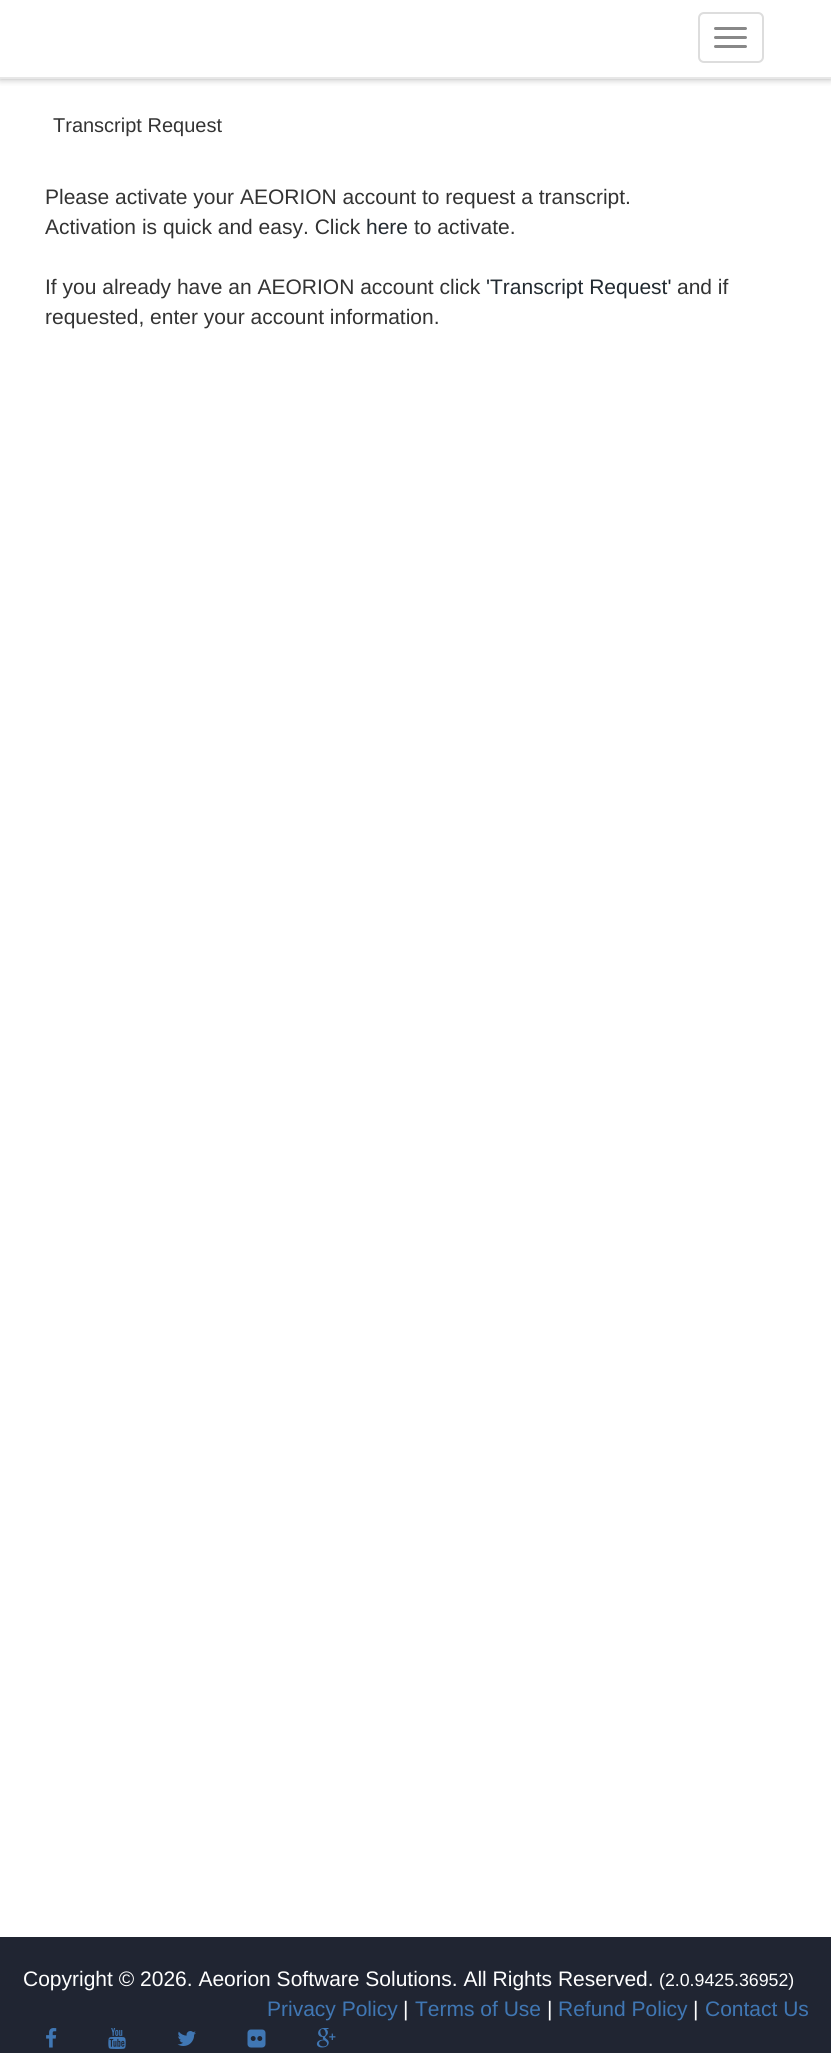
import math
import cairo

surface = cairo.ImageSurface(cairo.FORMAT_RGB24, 831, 2053)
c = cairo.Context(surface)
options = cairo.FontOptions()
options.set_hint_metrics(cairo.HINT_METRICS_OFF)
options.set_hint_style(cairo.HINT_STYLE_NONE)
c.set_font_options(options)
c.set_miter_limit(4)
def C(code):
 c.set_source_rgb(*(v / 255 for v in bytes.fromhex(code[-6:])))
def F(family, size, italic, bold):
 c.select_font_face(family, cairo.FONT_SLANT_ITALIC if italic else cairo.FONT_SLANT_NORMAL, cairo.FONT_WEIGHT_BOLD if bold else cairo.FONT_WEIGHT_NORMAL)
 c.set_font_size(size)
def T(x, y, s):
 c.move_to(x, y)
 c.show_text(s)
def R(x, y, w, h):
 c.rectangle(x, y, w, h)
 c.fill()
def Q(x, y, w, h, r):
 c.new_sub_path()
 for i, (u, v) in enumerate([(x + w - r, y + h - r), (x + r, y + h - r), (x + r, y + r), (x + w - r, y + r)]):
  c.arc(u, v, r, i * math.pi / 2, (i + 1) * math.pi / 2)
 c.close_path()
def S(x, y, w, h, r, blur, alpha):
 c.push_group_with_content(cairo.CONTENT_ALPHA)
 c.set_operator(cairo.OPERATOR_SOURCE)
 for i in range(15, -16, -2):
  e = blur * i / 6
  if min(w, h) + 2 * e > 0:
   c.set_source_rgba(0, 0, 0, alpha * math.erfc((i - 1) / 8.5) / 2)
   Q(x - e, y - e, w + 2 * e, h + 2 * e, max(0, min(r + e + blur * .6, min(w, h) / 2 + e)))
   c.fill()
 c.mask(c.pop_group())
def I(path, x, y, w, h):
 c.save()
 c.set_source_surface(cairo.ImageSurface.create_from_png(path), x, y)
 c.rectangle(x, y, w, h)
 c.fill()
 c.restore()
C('ffffff')
c.paint()
c.save()
c.rectangle(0,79,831,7)
c.clip()
C('999999')
S(0,0,831,78,0,4,1)
c.restore()
C('e7e7e7')
R(0,77,831,2)
Q(699,13,64,49,5)
C('dddddd')
c.stroke()
C('888888')
Q(714,27,33,3,1.5)
c.fill()
Q(714,36,33,3,1.5)
c.fill()
Q(714,45,33,3,1.5)
c.fill()
F('Liberation Sans',20,0,0)
C('333333')
T(53,132,'Transcript Request')
F('Liberation Sans',21,0,0)
T(45,204,'Please activate your AEORION account to request a transcript.')
T(45,234,'Activation is quick and easy. Click')
C('222a31')
T(366,234,'here')
C('333333')
T(414,234,'to activate.')
T(45,294,'If you already have an AEORION account click')
C('222a31')
T(486,294,'\'Transcript Request\'')
C('333333')
T(677,294,'and if')
T(45,324,'requested, enter your account information.')
C('202532')
R(0,1937,831,116)
C('ffffff')
T(23,1986,'Copyright © 2026. Aeorion Software Solutions. All Rights Reserved.')
F('Liberation Sans',17.75,0,0)
T(659,1986,'(2.0.9425.36952)')
F('Liberation Sans',21,0,0)
C('4077b4')
T(267,2016,'Privacy Policy')
C('ffffff')
T(403,2016,'|')
C('4077b4')
T(415,2016,'Terms of Use')
C('ffffff')
T(547,2016,'|')
C('4077b4')
T(558,2016,'Refund Policy')
C('ffffff')
T(693,2016,'|')
C('4077b4')
T(705,2016,'Contact Us')
I('1.png',46,2028,11,20)
I('2.png',108,2028,18,21)
I('3.png',177,2031,19,15)
I('4.png',247,2029,19,19)
I('5.png',316,2028,20,20)
surface.write_to_png('o.png')
